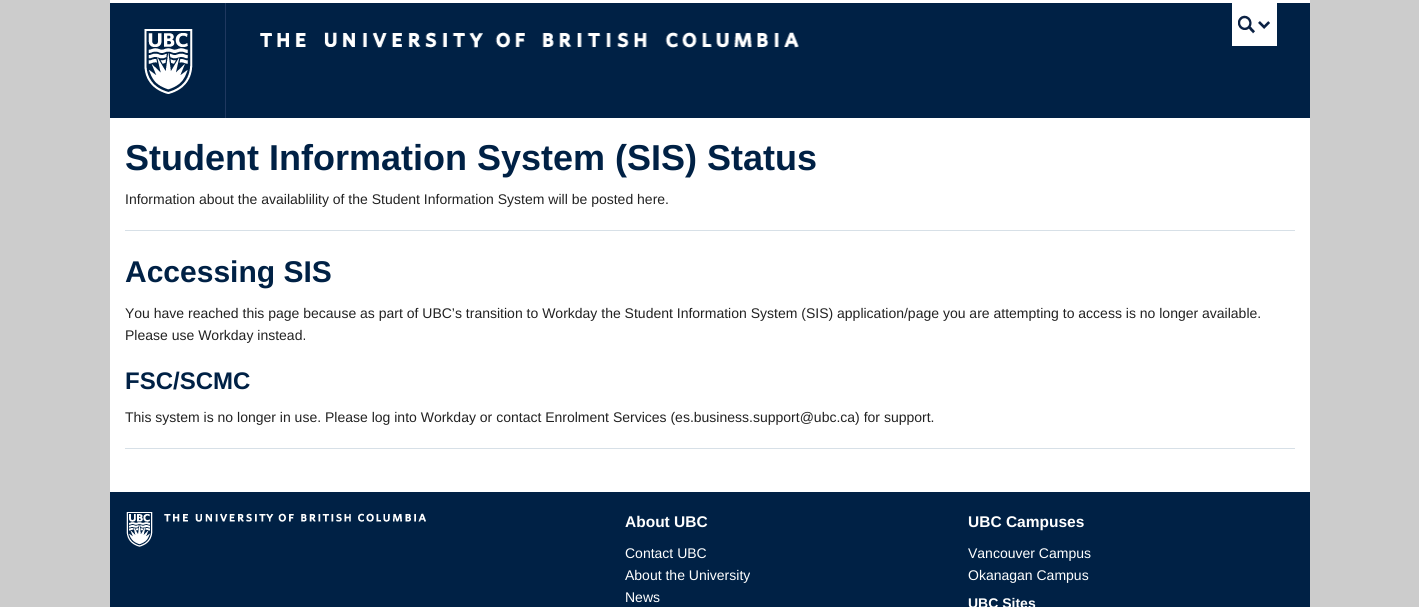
import math
import cairo

surface = cairo.ImageSurface(cairo.FORMAT_RGB24, 1419, 607)
c = cairo.Context(surface)
options = cairo.FontOptions()
options.set_hint_metrics(cairo.HINT_METRICS_OFF)
options.set_hint_style(cairo.HINT_STYLE_NONE)
c.set_font_options(options)
c.set_miter_limit(4)
def C(code):
 c.set_source_rgb(*(v / 255 for v in bytes.fromhex(code[-6:])))
def F(family, size, italic, bold):
 c.select_font_face(family, cairo.FONT_SLANT_ITALIC if italic else cairo.FONT_SLANT_NORMAL, cairo.FONT_WEIGHT_BOLD if bold else cairo.FONT_WEIGHT_NORMAL)
 c.set_font_size(size)
def T(x, y, s):
 c.move_to(x, y)
 c.show_text(s)
def R(x, y, w, h):
 c.rectangle(x, y, w, h)
 c.fill()
def I(path, x, y, w, h):
 c.save()
 c.set_source_surface(cairo.ImageSurface.create_from_png(path), x, y)
 c.rectangle(x, y, w, h)
 c.fill()
 c.restore()
C('cccccc')
c.paint()
C('002145')
R(110,3,1200,115)
C('ffffff')
R(110,0,1200,3)
I('1.png',144,29,49,65)
I('2.png',260,32,539,16)
C('1f385f')
R(225,3,1,115)
C('ffffff')
R(1232,3,45,43)
I('3.png',1238,15,32,19)
R(110,118,1200,374)
F('Liberation Sans',36,0,1)
C('002145')
T(125,170,'Student Information System (SIS) Status')
F('Liberation Sans',14,0,0)
C('222222')
T(125,204,'Information about the availablility of the Student Information System will be posted here.')
C('d7e0e7')
R(125,230,1170,1)
F('Liberation Sans',30,0,1)
C('002145')
T(125,282,'Accessing SIS')
F('Liberation Sans',14,0,0)
C('222222')
T(125,318,'You have reached this page because as part of UBC’s transition to Workday the Student Information System (SIS) application/page you are attempting to access is no longer available.')
T(125,340,'Please use Workday instead.')
F('Liberation Sans',24,0,1)
C('002145')
T(125,389,'FSC/SCMC')
F('Liberation Sans',14,0,0)
C('222222')
T(125,422,'This system is no longer in use. Please log into Workday or contact Enrolment Services (es.business.support@ubc.ca) for support.')
C('d7e0e7')
R(125,448,1170,1)
C('002145')
R(110,492,1200,115)
I('4.png',126,512,300,35)
F('Liberation Sans',15.5,0,1)
C('ffffff')
T(625,527,'About UBC')
F('Liberation Sans',14,0,0)
T(625,558,'Contact UBC')
T(625,580,'About the University')
T(625,602,'News')
F('Liberation Sans',15.5,0,1)
T(968,527,'UBC Campuses')
F('Liberation Sans',14,0,0)
T(968,558,'Vancouver Campus')
T(968,580,'Okanagan Campus')
F('Liberation Sans',14,0,1)
T(968,608,'UBC Sites')
surface.write_to_png('o.png')
